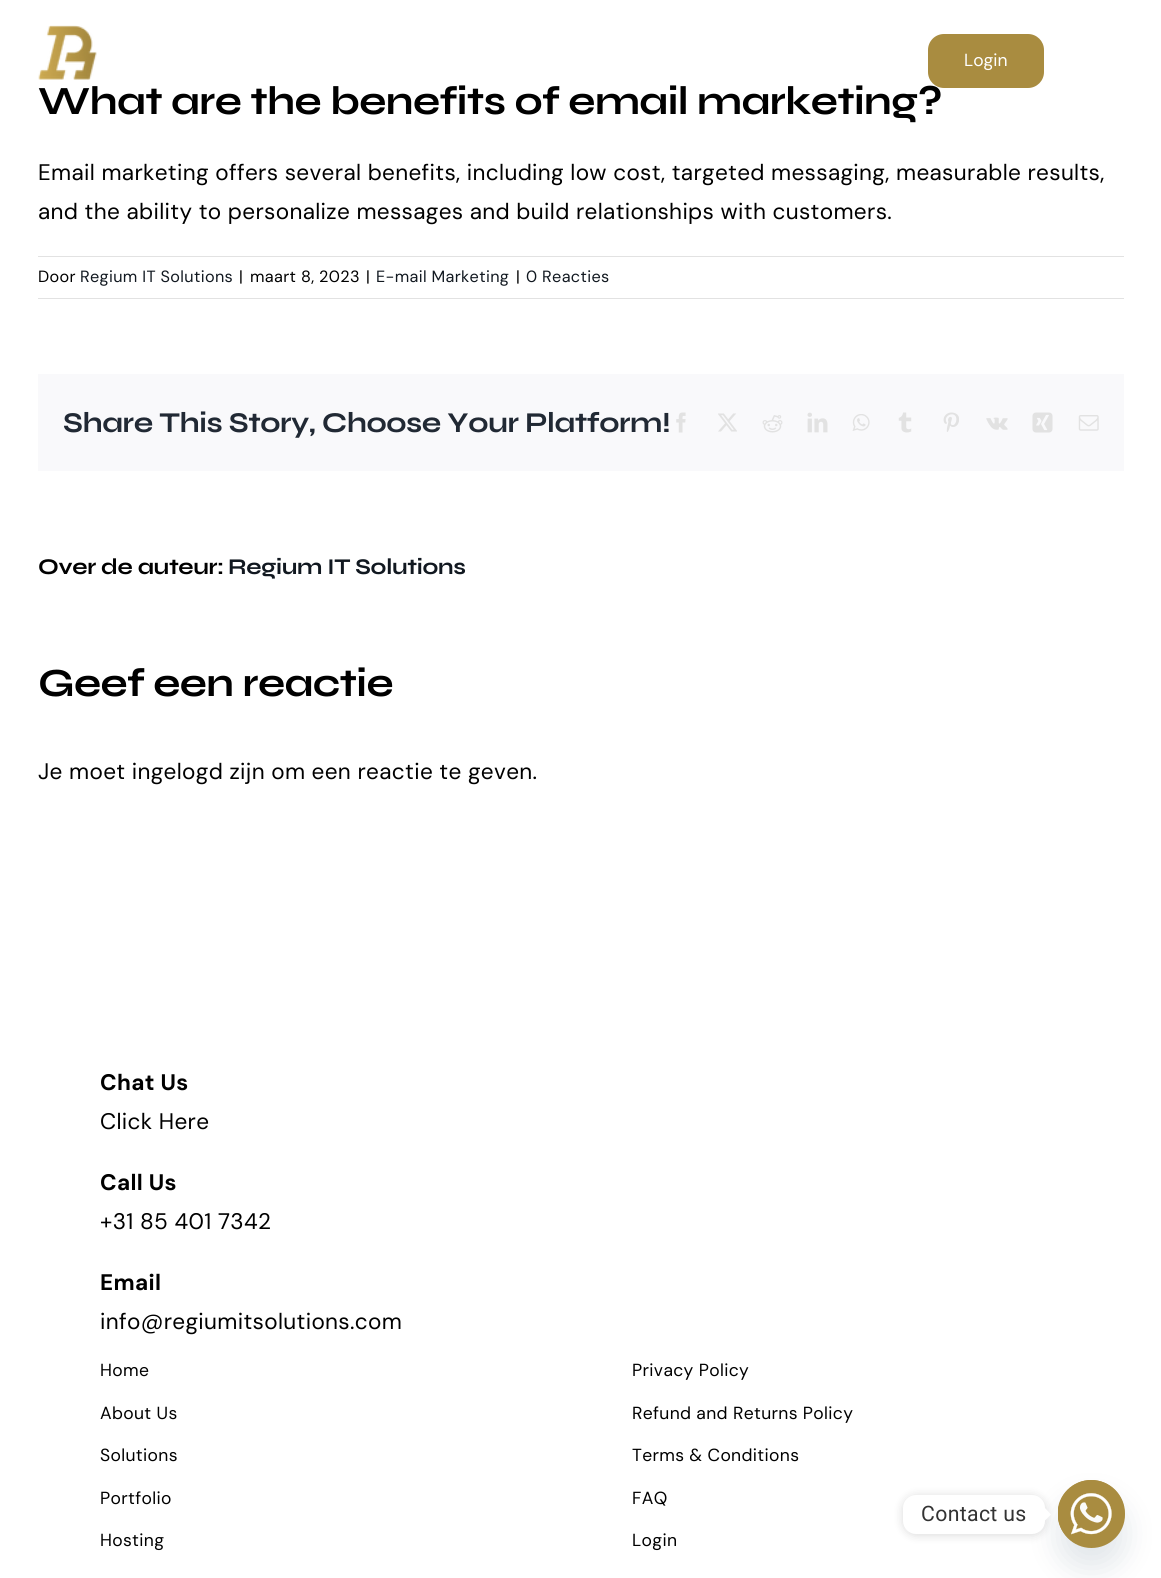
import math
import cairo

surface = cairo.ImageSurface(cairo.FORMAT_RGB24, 1161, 1578)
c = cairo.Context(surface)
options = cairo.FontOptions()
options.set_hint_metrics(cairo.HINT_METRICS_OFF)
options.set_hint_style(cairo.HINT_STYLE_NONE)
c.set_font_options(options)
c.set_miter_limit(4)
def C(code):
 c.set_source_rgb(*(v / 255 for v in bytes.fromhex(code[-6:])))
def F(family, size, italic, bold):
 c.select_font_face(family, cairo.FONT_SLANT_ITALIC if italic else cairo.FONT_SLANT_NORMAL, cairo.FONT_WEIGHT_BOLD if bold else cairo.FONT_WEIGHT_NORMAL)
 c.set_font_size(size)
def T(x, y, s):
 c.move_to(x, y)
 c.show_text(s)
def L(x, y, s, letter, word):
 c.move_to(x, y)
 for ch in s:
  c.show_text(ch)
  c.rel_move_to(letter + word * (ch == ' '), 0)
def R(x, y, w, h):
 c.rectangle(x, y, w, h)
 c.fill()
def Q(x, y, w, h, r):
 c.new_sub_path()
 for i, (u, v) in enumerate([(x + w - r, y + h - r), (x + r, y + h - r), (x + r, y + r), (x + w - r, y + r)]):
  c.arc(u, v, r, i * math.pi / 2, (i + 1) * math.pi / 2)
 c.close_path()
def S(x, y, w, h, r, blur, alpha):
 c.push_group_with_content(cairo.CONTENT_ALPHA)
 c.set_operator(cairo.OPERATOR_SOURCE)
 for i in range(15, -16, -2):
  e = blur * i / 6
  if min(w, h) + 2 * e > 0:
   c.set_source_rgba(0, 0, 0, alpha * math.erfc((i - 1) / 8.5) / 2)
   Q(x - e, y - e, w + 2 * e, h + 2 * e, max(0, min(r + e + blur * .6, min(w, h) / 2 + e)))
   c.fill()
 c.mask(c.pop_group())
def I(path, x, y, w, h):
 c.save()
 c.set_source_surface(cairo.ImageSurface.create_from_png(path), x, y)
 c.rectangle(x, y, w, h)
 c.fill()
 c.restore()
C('ffffff')
c.paint()
I('1.png',38,25,59,55)
F('Syne',40,0,1)
C('000000')
L(38,114,'What are the benefits of email marketing?',-.6,0)
C('a98c40')
Q(928,34,116,54,16)
c.fill()
F('DM Sans',17.5,0,0)
C('ffffff')
T(964,66,'Login')
F('DM Sans',22.5,0,0)
C('000000')
L(38,180,'Email marketing offers several benefits, including low cost, targeted messaging, measurable results,',.34,0)
L(38,219,'and the ability to personalize messages and build relationships with customers.',.34,0)
C('e2e2e2')
R(38,256,1086,1)
R(38,298,1086,1)
F('DM Sans',16.25,0,0)
C('000000')
L(38,282,'Door',.34,0)
C('111820')
L(80,282,'Regium IT Solutions',.34,0)
C('000000')
L(239,282,'|',.34,0)
L(250,282,'maart 8, 2023',.34,0)
L(366,282,'|',.34,0)
C('111820')
L(376,282,'E-mail Marketing',.34,0)
C('000000')
L(516,282,'|',.34,0)
C('111820')
L(526,282,'0 Reacties',.34,0)
C('f9f9fb')
R(38,374,1086,97)
F('Syne',28.75,0,1)
C('212934')
L(63,432,'Share This Story, Choose Your Platform!',-.45,0)
I('2.png',676,412,10,21)
I('3.png',718,413,19,19)
I('4.png',762,415,21,18)
I('5.png',807,412,21,21)
I('6.png',852,414,18,17)
I('7.png',898,412,14,21)
I('8.png',943,412,16,20)
I('9.png',986,417,22,13)
I('10.png',1032,412,21,21)
I('11.png',1078,415,21,16)
F('Syne',22.5,0,1)
C('000000')
L(38,574,'Over de auteur:',-.3,0)
C('111820')
L(228,574,'Regium IT Solutions',-.3,0)
F('Syne',40,0,1)
C('000000')
L(38,696,'Geef een reactie',-.6,0)
F('DM Sans',22.5,0,0)
L(38,779,'Je moet ingelogd zijn om een reactie te geven.',.34,0)
F('DM Sans',22.5,0,1)
L(100,1090,'Chat Us',.34,0)
F('DM Sans',22.5,0,0)
L(100,1129,'Click Here',.34,0)
F('DM Sans',22.5,0,1)
L(100,1190,'Call Us',.34,0)
F('DM Sans',22.5,0,0)
L(100,1229,'+31 85 401 7342',.34,0)
F('DM Sans',22.5,0,1)
L(100,1290,'Email',.34,0)
F('DM Sans',22.5,0,0)
L(100,1329,'info@regiumitsolutions.com',.34,0)
F('DM Sans',17.5,0,0)
L(100,1376,'Home',.34,0)
L(100,1419,'About Us',.34,0)
L(100,1461,'Solutions',.34,0)
L(100,1504,'Portfolio',.34,0)
L(100,1546,'Hosting',.34,0)
L(632,1376,'Privacy Policy',.34,0)
L(632,1419,'Refund and Returns Policy',.34,0)
L(632,1461,'Terms & Conditions',.34,0)
L(632,1504,'FAQ',.34,0)
L(632,1546,'Login',.34,0)
C('49687e')
S(1058,1500,67,68,33.5,15,.16)
C('a98c40')
Q(1058,1480,67,68,33.5)
c.fill()
I('12.png',1058,1480,67,63)
C('000000')
S(903,1496,142,39,13,5,.15)
C('ffffff')
Q(903,1495,142,39,13)
c.fill()
F('Roboto',21.25,0,0)
C('333333')
L(921,1521,'Contact us',.34,0)
C('ffffff')
c.new_path()
c.move_to(1045,1520.5)
c.line_to(1045,1508)
c.line_to(1051,1514.5)
c.close_path()
c.fill()
surface.write_to_png('o.png')
